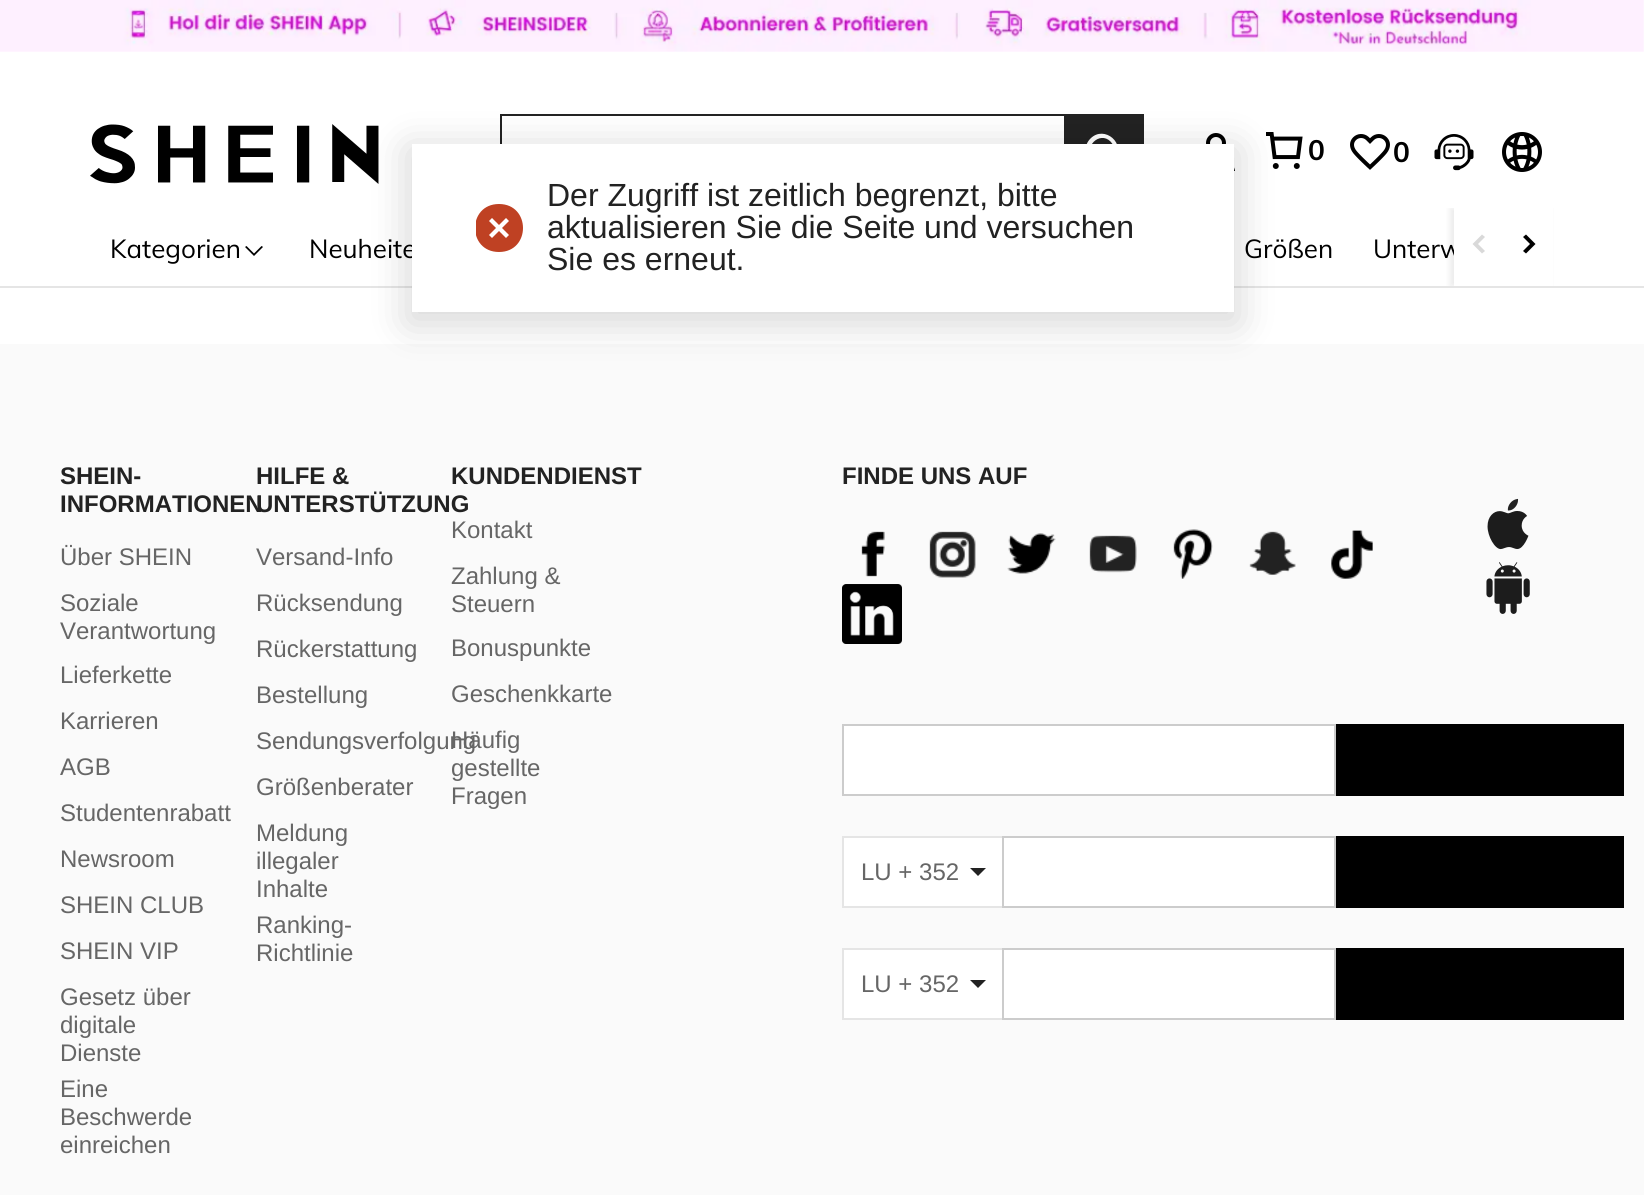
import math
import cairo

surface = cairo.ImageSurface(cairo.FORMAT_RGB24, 1644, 1195)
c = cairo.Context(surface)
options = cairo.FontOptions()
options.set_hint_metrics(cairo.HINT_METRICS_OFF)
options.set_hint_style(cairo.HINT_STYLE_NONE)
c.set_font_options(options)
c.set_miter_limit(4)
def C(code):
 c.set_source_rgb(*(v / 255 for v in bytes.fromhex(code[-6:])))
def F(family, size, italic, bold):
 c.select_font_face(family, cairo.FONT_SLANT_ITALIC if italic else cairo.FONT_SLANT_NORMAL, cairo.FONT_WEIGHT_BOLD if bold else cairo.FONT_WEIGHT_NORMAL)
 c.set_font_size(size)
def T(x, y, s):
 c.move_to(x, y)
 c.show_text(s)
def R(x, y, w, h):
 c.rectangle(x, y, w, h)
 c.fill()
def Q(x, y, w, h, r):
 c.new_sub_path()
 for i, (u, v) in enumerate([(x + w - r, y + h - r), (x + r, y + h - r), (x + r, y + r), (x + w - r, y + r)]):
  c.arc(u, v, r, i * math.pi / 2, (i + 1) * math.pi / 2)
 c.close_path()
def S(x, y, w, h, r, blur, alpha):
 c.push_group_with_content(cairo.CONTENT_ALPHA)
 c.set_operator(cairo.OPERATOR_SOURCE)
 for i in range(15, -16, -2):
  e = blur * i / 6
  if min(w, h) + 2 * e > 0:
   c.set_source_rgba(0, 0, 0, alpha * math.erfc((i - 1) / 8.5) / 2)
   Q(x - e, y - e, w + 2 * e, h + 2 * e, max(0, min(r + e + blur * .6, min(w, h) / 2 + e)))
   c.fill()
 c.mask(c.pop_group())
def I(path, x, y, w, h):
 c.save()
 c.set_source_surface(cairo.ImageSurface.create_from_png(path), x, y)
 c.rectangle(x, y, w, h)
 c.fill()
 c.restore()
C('ffffff')
c.paint()
I('1.png',0,0,1644,52)
I('2.png',90,124,289,60)
C('222222')
R(500,114,564,2)
R(500,114,2,30)
R(1064,114,80,30)
C('ffffff')
c.set_fill_rule(cairo.FILL_RULE_EVEN_ODD)
c.new_path()
c.move_to(1090.5,138.5)
c.curve_to(1104.5,124.5,1127,144,1114.5,160)
c.line_to(1123,168.5)
c.line_to(1120.5,171)
c.line_to(1112,162.5)
c.curve_to(1096,175,1076.5,152.5,1090.5,138.5)
c.close_path()
c.move_to(1110.5,141.5)
c.curve_to(1099.5,130.5,1082.5,147.5,1093.5,158.5)
c.curve_to(1104.5,169.5,1121.5,152.5,1110.5,141.5)
c.close_path()
c.fill()
I('3.png',1206,133,29,38)
I('4.png',1266,132,37,37)
F('Muli',28,0,1)
C('000000')
T(1308,160,'0')
I('5.png',1350,134,40,36)
T(1393,162,'0')
I('6.png',1434,134,40,37)
I('7.png',1502,132,40,40)
C('e5e5e5')
R(0,286,1644,2)
F('Muli',26,0,0)
C('000000')
T(110,258,'Kategorien')
c.set_fill_rule(cairo.FILL_RULE_WINDING)
c.new_path()
c.move_to(261.5,246)
c.line_to(263,247)
c.line_to(254,256)
c.line_to(245,247)
c.line_to(246.5,246)
c.line_to(254,253.5)
c.close_path()
c.fill()
T(309,258,'Neuheite')
T(1244,258,'Größen')
T(1373,258,'Unterw')
c.save()
c.rectangle(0,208,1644,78)
c.clip()
C('000000')
S(1450,208,100,78,0,3,.08)
c.restore()
C('ffffff')
R(1454,208,99,78)
C('d9d9d9')
c.set_fill_rule(cairo.FILL_RULE_EVEN_ODD)
c.new_path()
c.move_to(1482,234.5)
c.line_to(1485,237)
c.line_to(1478,244)
c.line_to(1485,251)
c.line_to(1482,253.5)
c.line_to(1472.5,244)
c.close_path()
c.fill()
C('000000')
c.new_path()
c.move_to(1523,237)
c.line_to(1526,234.5)
c.line_to(1535.5,244)
c.line_to(1526,253.5)
c.line_to(1523,251)
c.line_to(1530,244)
c.close_path()
c.fill()
C('fafafa')
R(0,344,1644,851)
F('Liberation Sans',24,0,1)
C('222222')
T(60,484,'SHEIN-')
T(60,512,'INFORMATIONEN')
F('Liberation Sans',24,0,0)
C('666666')
T(60,565,'Über SHEIN')
T(60,611,'Soziale')
T(60,639,'Verantwortung')
T(60,683,'Lieferkette')
T(60,729,'Karrieren')
T(60,775,'AGB')
T(60,821,'Studentenrabatt')
T(60,867,'Newsroom')
T(60,913,'SHEIN CLUB')
T(60,959,'SHEIN VIP')
T(60,1005,'Gesetz über')
T(60,1033,'digitale')
T(60,1061,'Dienste')
T(60,1097,'Eine')
T(60,1125,'Beschwerde')
T(60,1153,'einreichen')
F('Liberation Sans',24,0,1)
C('222222')
T(256,484,'HILFE &')
T(256,512,'UNTERSTÜTZUNG')
F('Liberation Sans',24,0,0)
C('666666')
T(256,565,'Versand-Info')
T(256,611,'Rücksendung')
T(256,657,'Rückerstattung')
T(256,703,'Bestellung')
T(256,749,'Sendungsverfolgung')
T(256,795,'Größenberater')
T(256,841,'Meldung')
T(256,869,'illegaler')
T(256,897,'Inhalte')
T(256,933,'Ranking-')
T(256,961,'Richtlinie')
F('Liberation Sans',24,0,1)
C('222222')
T(451,484,'KUNDENDIENST')
F('Liberation Sans',24,0,0)
C('666666')
T(451,538,'Kontakt')
T(451,584,'Zahlung &')
T(451,612,'Steuern')
T(451,656,'Bonuspunkte')
T(451,702,'Geschenkkarte')
T(451,748,'Häufig')
T(451,776,'gestellte')
T(451,804,'Fragen')
F('Liberation Sans',24,0,1)
C('222222')
T(842,484,'FINDE UNS AUF')
I('8.png',861,531,24,46)
I('9.png',929,531,47,47)
I('10.png',1007,533,49,41)
I('11.png',1089,535,48,38)
I('12.png',1173,529,40,50)
I('13.png',1249,531,47,44)
I('14.png',1331,530,42,49)
I('15.png',842,584,60,60)
I('16.png',1487,498,42,52)
I('17.png',1486,562,44,52)
C('ffffff')
c.rectangle(843,725,492,70)
c.fill_preserve()
C('cccccc')
c.stroke()
C('000000')
R(1336,724,288,72)
C('ffffff')
R(844,838,158,68)
C('e5e5e5')
R(842,836,160,2)
R(842,906,160,2)
R(842,836,2,72)
F('Liberation Sans',24,0,0)
C('666666')
T(861,880,'LU + 352')
C('222222')
c.set_fill_rule(cairo.FILL_RULE_WINDING)
c.new_path()
c.move_to(970,868)
c.line_to(986,868)
c.line_to(978,876)
c.close_path()
c.fill()
C('ffffff')
c.rectangle(1003,837,332,70)
c.fill_preserve()
C('cccccc')
c.stroke()
C('000000')
R(1336,836,288,72)
C('ffffff')
R(844,950,158,68)
C('e5e5e5')
R(842,948,160,2)
R(842,1018,160,2)
R(842,948,2,72)
C('666666')
T(861,992,'LU + 352')
C('222222')
c.new_path()
c.move_to(970,980)
c.line_to(986,980)
c.line_to(978,988)
c.close_path()
c.fill()
C('ffffff')
c.rectangle(1003,949,332,70)
c.fill_preserve()
C('cccccc')
c.stroke()
C('000000')
R(1336,948,288,72)
C('000000')
S(408,148,830,176,0,20,.16)
C('ffffff')
R(412,144,822,168)
c.save()
c.rectangle(476,204,48,48)
c.clip()
C('bf4123')
c.new_path()
c.move_to(499,204)
c.curve_to(531,204,531,252,499,252)
c.curve_to(467,252,467,204,499,204)
c.close_path()
c.move_to(496,228)
c.line_to(489,235)
c.line_to(492,238)
c.line_to(499,231)
c.line_to(506,238)
c.line_to(509,235)
c.line_to(502,228)
c.line_to(509,221)
c.line_to(506,218)
c.line_to(499,225)
c.line_to(492,218)
c.line_to(489,221)
c.close_path()
c.fill()
c.restore()
F('Liberation Sans',32,0,0)
C('222222')
T(547,206,'Der Zugriff ist zeitlich begrenzt, bitte')
T(547,238,'aktualisieren Sie die Seite und versuchen')
T(547,270,'Sie es erneut.')
surface.write_to_png('o.png')
